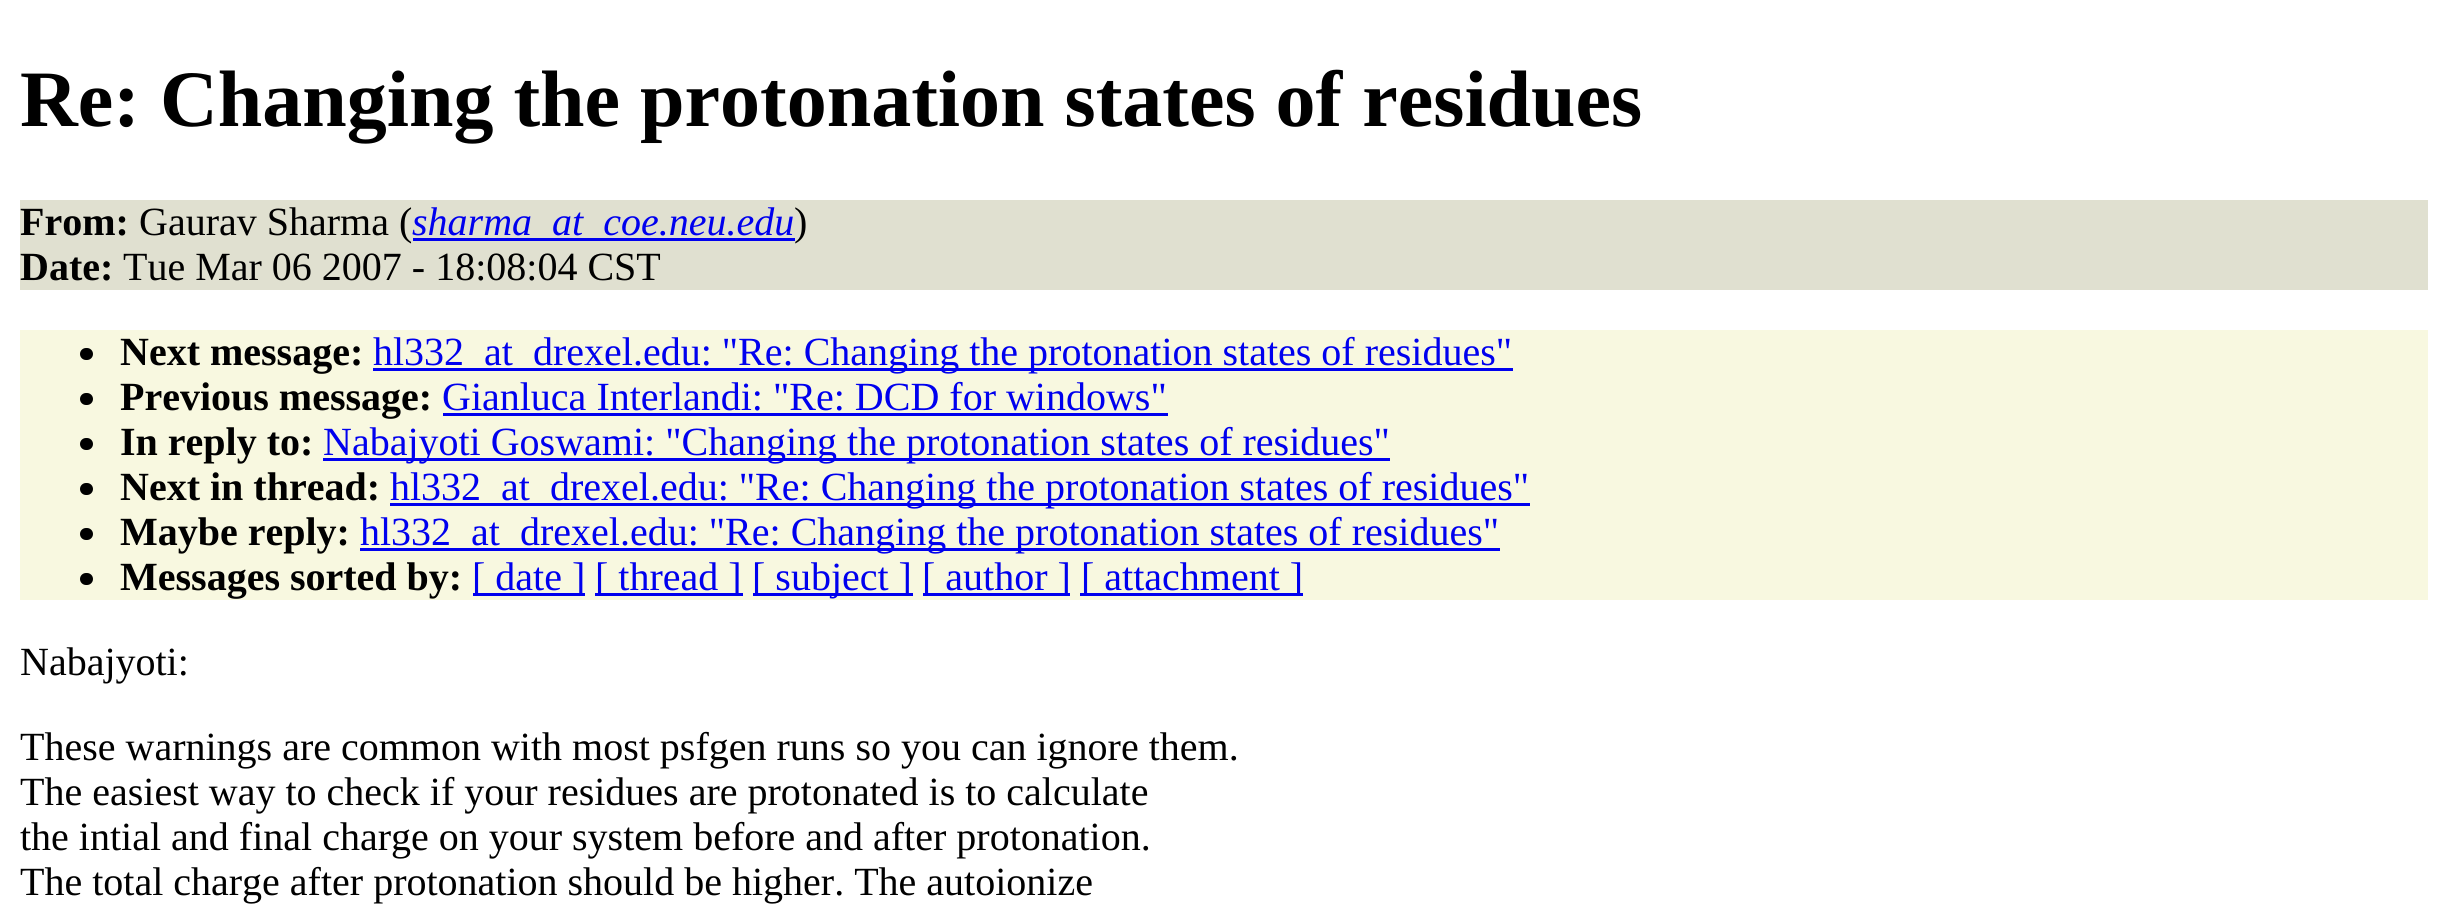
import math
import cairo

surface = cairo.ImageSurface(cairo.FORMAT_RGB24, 2446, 922)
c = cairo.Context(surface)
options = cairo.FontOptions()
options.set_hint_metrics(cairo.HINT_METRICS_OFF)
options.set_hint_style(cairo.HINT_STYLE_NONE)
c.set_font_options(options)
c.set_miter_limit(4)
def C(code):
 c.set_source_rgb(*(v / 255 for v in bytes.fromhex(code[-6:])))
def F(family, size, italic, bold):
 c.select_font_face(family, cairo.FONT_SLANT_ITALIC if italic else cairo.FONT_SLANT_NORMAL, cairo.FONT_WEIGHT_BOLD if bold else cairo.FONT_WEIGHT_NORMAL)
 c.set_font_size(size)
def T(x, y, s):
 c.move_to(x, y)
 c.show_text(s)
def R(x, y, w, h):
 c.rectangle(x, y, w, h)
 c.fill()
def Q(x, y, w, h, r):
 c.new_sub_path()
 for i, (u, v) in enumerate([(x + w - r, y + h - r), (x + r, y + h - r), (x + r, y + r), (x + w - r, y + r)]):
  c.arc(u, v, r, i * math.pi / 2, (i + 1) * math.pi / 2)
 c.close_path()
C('ffffff')
c.paint()
F('Liberation Serif',80,0,1)
C('000000')
T(20,126,'Re: Changing the protonation states of residues')
C('e0e0d0')
R(20,200,2408,90)
F('Liberation Serif',40,0,1)
C('000000')
T(20,235,'From:')
F('Liberation Serif',40,0,0)
T(139,235,'Gaurav Sharma (')
C('0000ee')
R(413,238,382,3)
F('Liberation Serif',40,1,0)
T(412,235,'sharma_at_coe.neu.edu')
F('Liberation Serif',40,0,0)
C('000000')
T(794,235,')')
F('Liberation Serif',40,0,1)
T(20,280,'Date:')
F('Liberation Serif',40,0,0)
T(123,280,'Tue Mar 06 2007 - 18:08:04 CST')
C('f8f8e0')
R(20,330,2408,270)
C('000000')
Q(80,348,13,12,6)
c.fill()
F('Liberation Serif',40,0,1)
T(120,365,'Next message:')
C('0000ee')
R(373,368,1140,3)
F('Liberation Serif',40,0,0)
T(373,365,'hl332_at_drexel.edu: "Re: Changing the protonation states of residues"')
C('000000')
Q(80,393,13,12,6)
c.fill()
F('Liberation Serif',40,0,1)
T(120,410,'Previous message:')
F('Liberation Serif',40,0,0)
C('0000ee')
T(442,410,'Gianluca Interlandi: "Re: DCD for windows"')
R(443,413,725,3)
C('000000')
Q(80,438,13,12,6)
c.fill()
F('Liberation Serif',40,0,1)
T(120,455,'In reply to:')
C('0000ee')
R(323,458,1067,3)
F('Liberation Serif',40,0,0)
T(323,455,'Nabajyoti Goswami: "Changing the protonation states of residues"')
C('000000')
Q(80,483,13,12,6)
c.fill()
F('Liberation Serif',40,0,1)
T(120,500,'Next in thread:')
C('0000ee')
R(390,503,1140,3)
F('Liberation Serif',40,0,0)
T(390,500,'hl332_at_drexel.edu: "Re: Changing the protonation states of residues"')
C('000000')
Q(80,528,13,12,6)
c.fill()
F('Liberation Serif',40,0,1)
T(120,545,'Maybe reply:')
C('0000ee')
R(360,548,1140,3)
F('Liberation Serif',40,0,0)
T(360,545,'hl332_at_drexel.edu: "Re: Changing the protonation states of residues"')
C('000000')
Q(80,573,13,12,6)
c.fill()
F('Liberation Serif',40,0,1)
T(120,590,'Messages sorted by:')
C('0000ee')
R(473,593,112,3)
F('Liberation Serif',40,0,0)
T(472,590,'[ date ]')
R(595,593,148,3)
T(595,590,'[ thread ]')
R(753,593,160,3)
T(752,590,'[ subject ]')
R(923,593,147,3)
T(922,590,'[ author ]')
R(1080,593,223,3)
T(1081,590,'[ attachment ]')
C('000000')
T(20,675,'Nabajyoti:')
T(20,760,'These warnings are common with most psfgen runs so you can ignore them.')
T(20,805,'The easiest way to check if your residues are protonated is to calculate')
T(20,850,'the intial and final charge on your system before and after protonation.')
T(20,895,'The total charge after protonation should be higher. The autoionize')
surface.write_to_png('o.png')
